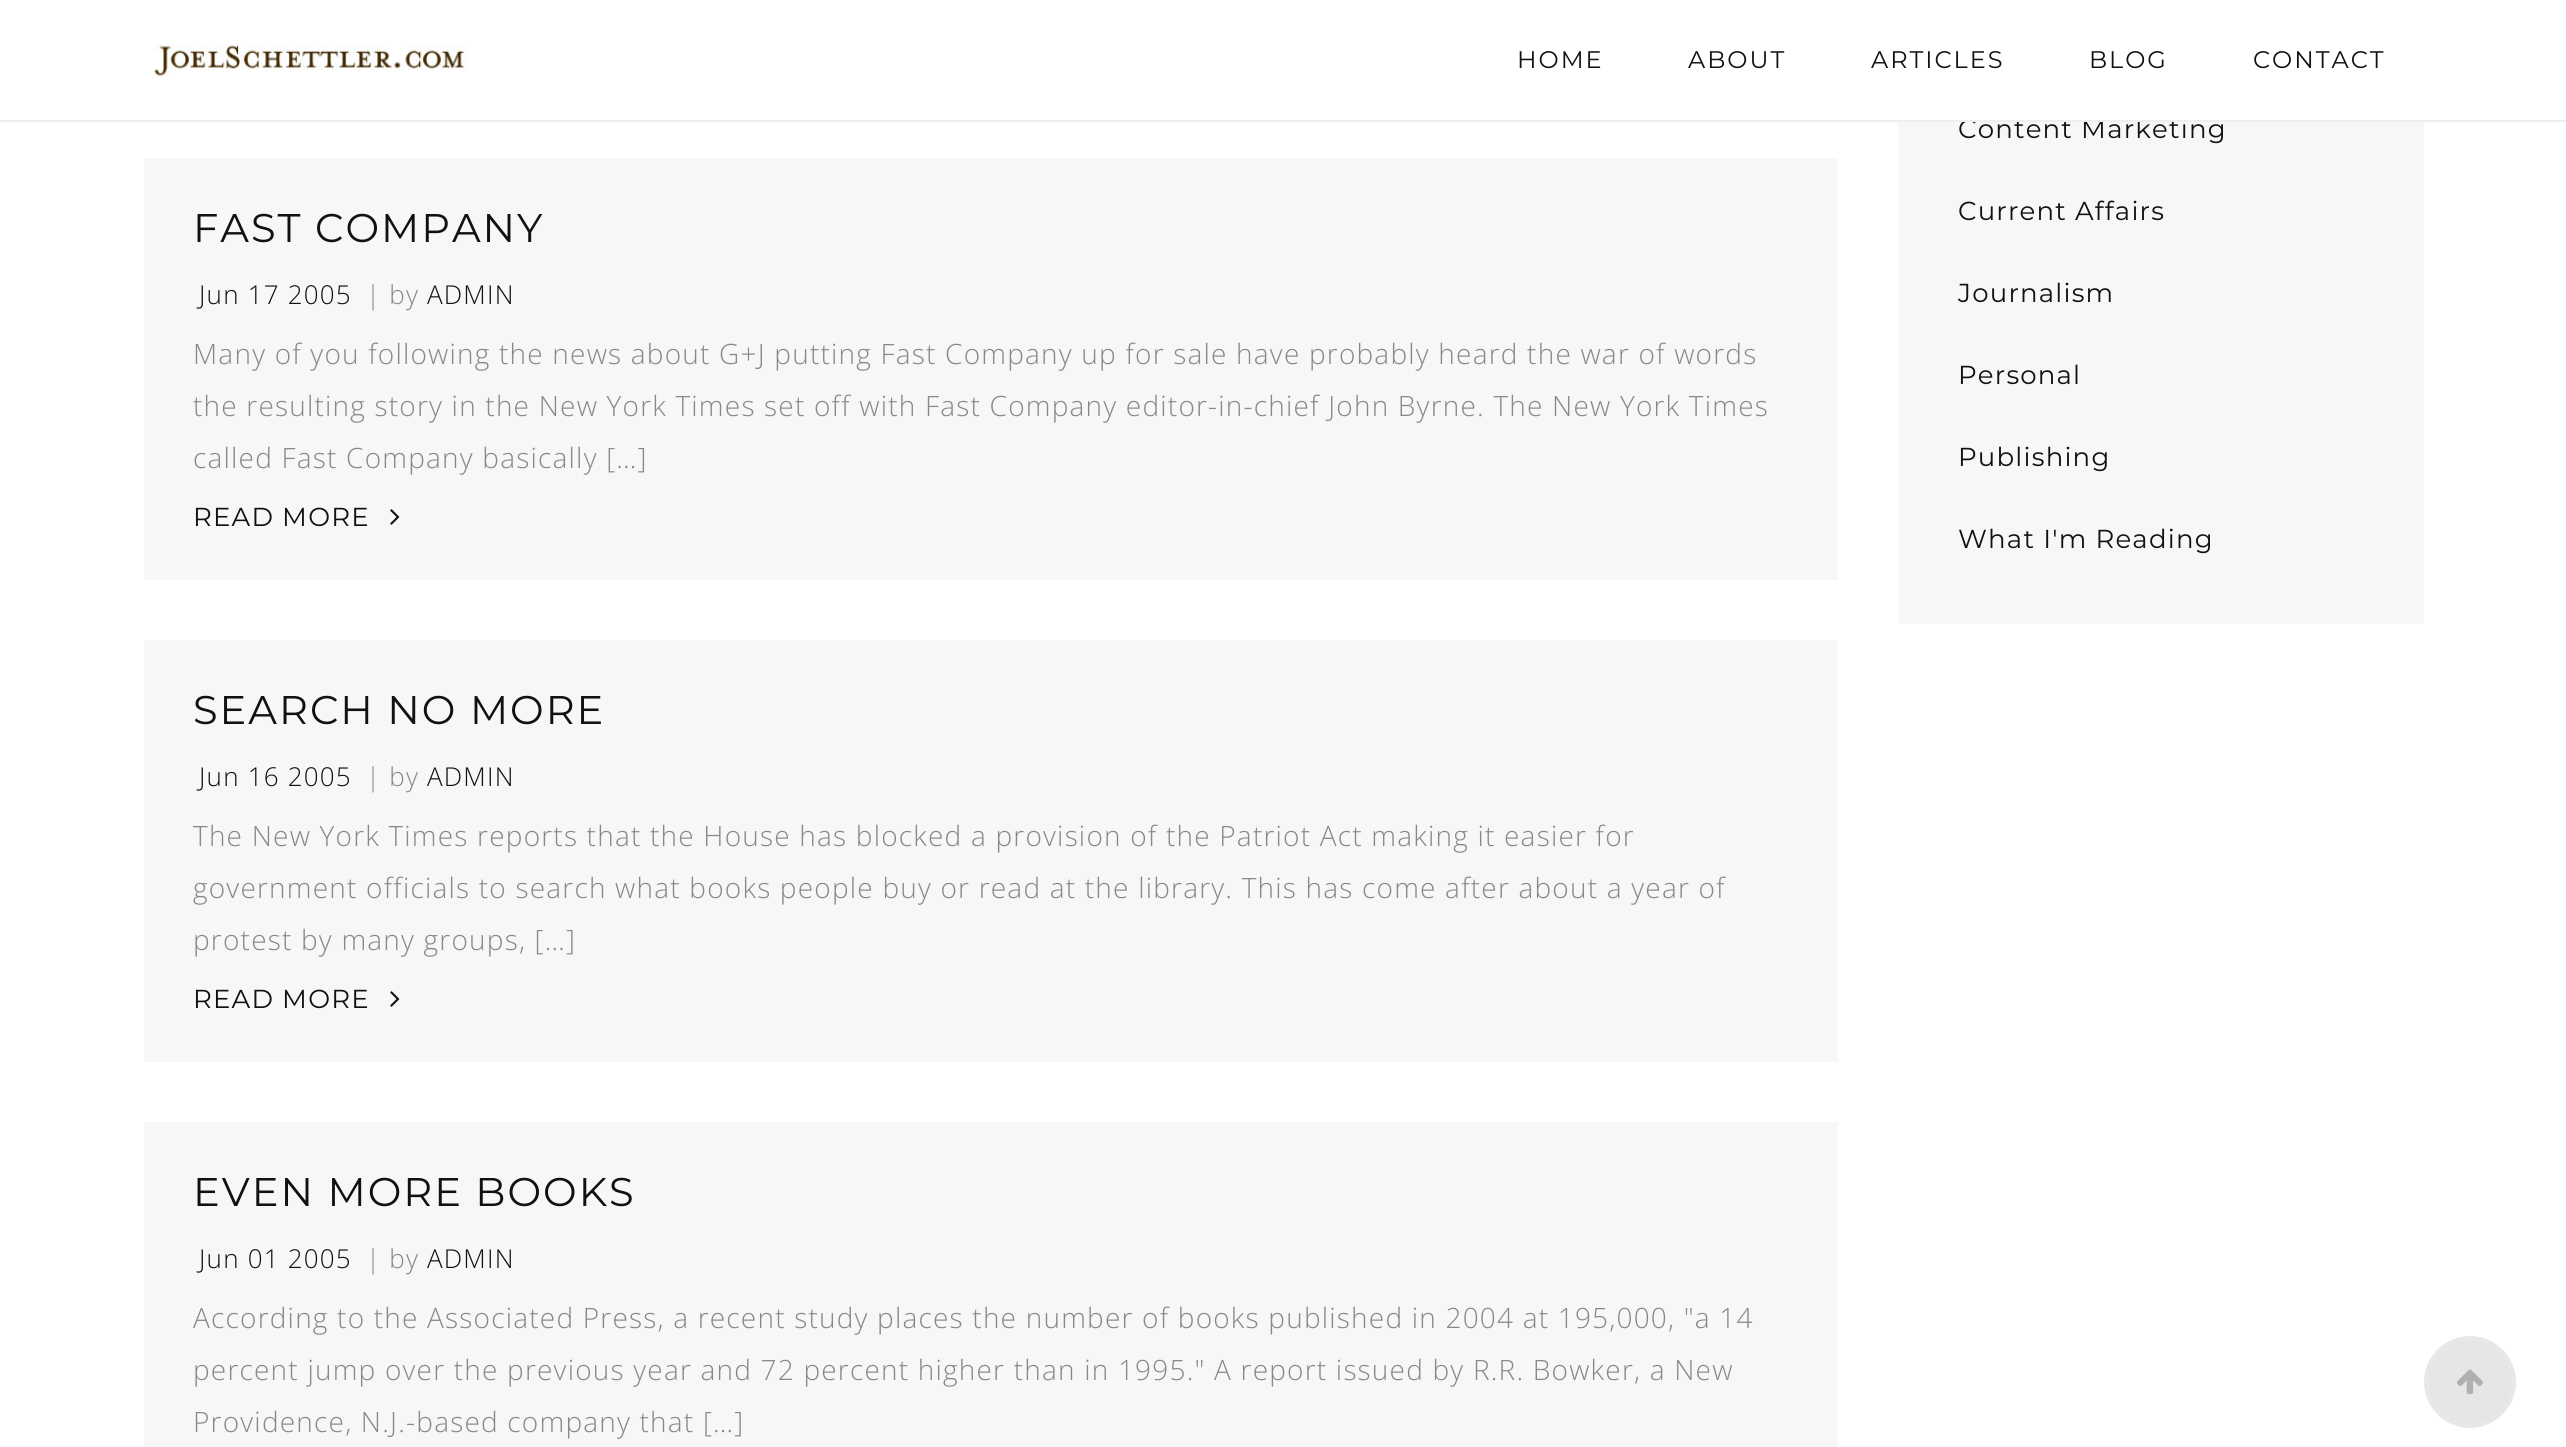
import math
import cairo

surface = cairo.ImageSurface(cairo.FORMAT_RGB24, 2566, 1447)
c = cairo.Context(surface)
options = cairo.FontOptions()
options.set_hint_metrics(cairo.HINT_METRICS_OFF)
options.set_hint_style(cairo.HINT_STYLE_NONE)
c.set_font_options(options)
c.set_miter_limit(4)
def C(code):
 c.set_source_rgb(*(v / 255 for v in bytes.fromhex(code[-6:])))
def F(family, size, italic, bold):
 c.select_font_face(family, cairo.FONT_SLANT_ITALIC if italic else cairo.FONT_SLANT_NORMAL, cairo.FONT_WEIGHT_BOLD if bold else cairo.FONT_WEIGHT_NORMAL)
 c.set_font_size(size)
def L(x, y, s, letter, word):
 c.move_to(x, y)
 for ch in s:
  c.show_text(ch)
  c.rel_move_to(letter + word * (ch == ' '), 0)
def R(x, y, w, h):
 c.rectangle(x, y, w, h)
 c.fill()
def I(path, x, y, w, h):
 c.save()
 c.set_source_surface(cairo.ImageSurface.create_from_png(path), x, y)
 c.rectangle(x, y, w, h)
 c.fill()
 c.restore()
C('ffffff')
c.paint()
C('f7f7f7')
R(1898,122,526,502)
F('Montserrat',26,0,0)
C('111111')
L(1958,138,'Content Marketing',1.2,0)
C('ffffff')
R(1966,118,220,2)
C('eeeeee')
R(0,120,2566,2)
I('1.png',154,44,313,33)
F('Montserrat',24,0,0)
C('111111')
L(1517,68,'HOME',2,0)
L(1688,68,'ABOUT',2,0)
L(1871,68,'ARTICLES',2,0)
L(2089,68,'BLOG',2,0)
L(2253,68,'CONTACT',2,0)
C('f7f7f7')
R(144,158,1694,422)
F('Montserrat',40,0,0)
C('111111')
L(193,242,'FAST COMPANY',2,0)
F('Open Sans Light',26,0,0)
L(199,304,'Jun 17 2005',1.2,0)
C('888888')
L(366,304,'| by',1.2,0)
C('111111')
L(427,304,'ADMIN',1.2,0)
F('Open Sans Light',28,0,0)
C('888888')
L(193,364,'Many of you following the news about G+J putting Fast Company up for sale have probably heard the war of words',1.2,0)
L(193,416,'the resulting story in the New York Times set off with Fast Company editor-in-chief John Byrne. The New York Times',1.2,0)
L(193,468,'called Fast Company basically […]',1.2,0)
F('Montserrat',26,0,0)
C('111111')
L(193,526,'READ MORE',1.2,0)
I('2.png',390,509,10,16)
C('f7f7f7')
R(144,640,1694,422)
F('Montserrat',40,0,0)
C('111111')
L(193,724,'SEARCH NO MORE',2,0)
F('Open Sans Light',26,0,0)
L(199,786,'Jun 16 2005',1.2,0)
C('888888')
L(366,786,'| by',1.2,0)
C('111111')
L(427,786,'ADMIN',1.2,0)
F('Open Sans Light',28,0,0)
C('888888')
L(193,846,'The New York Times reports that the House has blocked a provision of the Patriot Act making it easier for',1.2,0)
L(193,898,'government officials to search what books people buy or read at the library. This has come after about a year of',1.2,0)
L(193,950,'protest by many groups, […]',1.2,0)
F('Montserrat',26,0,0)
C('111111')
L(193,1008,'READ MORE',1.2,0)
I('2.png',390,991,10,16)
C('f7f7f7')
R(144,1122,1694,325)
F('Montserrat',40,0,0)
C('111111')
L(193,1206,'EVEN MORE BOOKS',2,0)
F('Open Sans Light',26,0,0)
L(199,1268,'Jun 01 2005',1.2,0)
C('888888')
L(366,1268,'| by',1.2,0)
C('111111')
L(427,1268,'ADMIN',1.2,0)
F('Open Sans Light',28,0,0)
C('888888')
L(193,1328,'According to the Associated Press, a recent study places the number of books published in 2004 at 195,000, "a 14',1.2,0)
L(193,1380,'percent jump over the previous year and 72 percent higher than in 1995." A report issued by R.R. Bowker, a New',1.2,0)
L(193,1432,'Providence, N.J.-based company that […]',1.2,0)
F('Montserrat',26,0,0)
C('111111')
L(1958,220,'Current Affairs',1.2,0)
L(1958,302,'Journalism',1.2,0)
L(1958,384,'Personal',1.2,0)
L(1958,466,'Publishing',1.2,0)
L(1958,548,'What I\'m Reading',1.2,0)
c.new_path()
c.arc(2470,1382,44,0,2 * math.pi)
C('e8e8e8')
c.set_line_width(4)
c.stroke()
c.set_source_rgba(0,0,0,0.1)
c.arc(2470,1382,42,0,2 * math.pi)
c.fill()
I('3.png',2457,1369,26,26)
surface.write_to_png('o.png')
